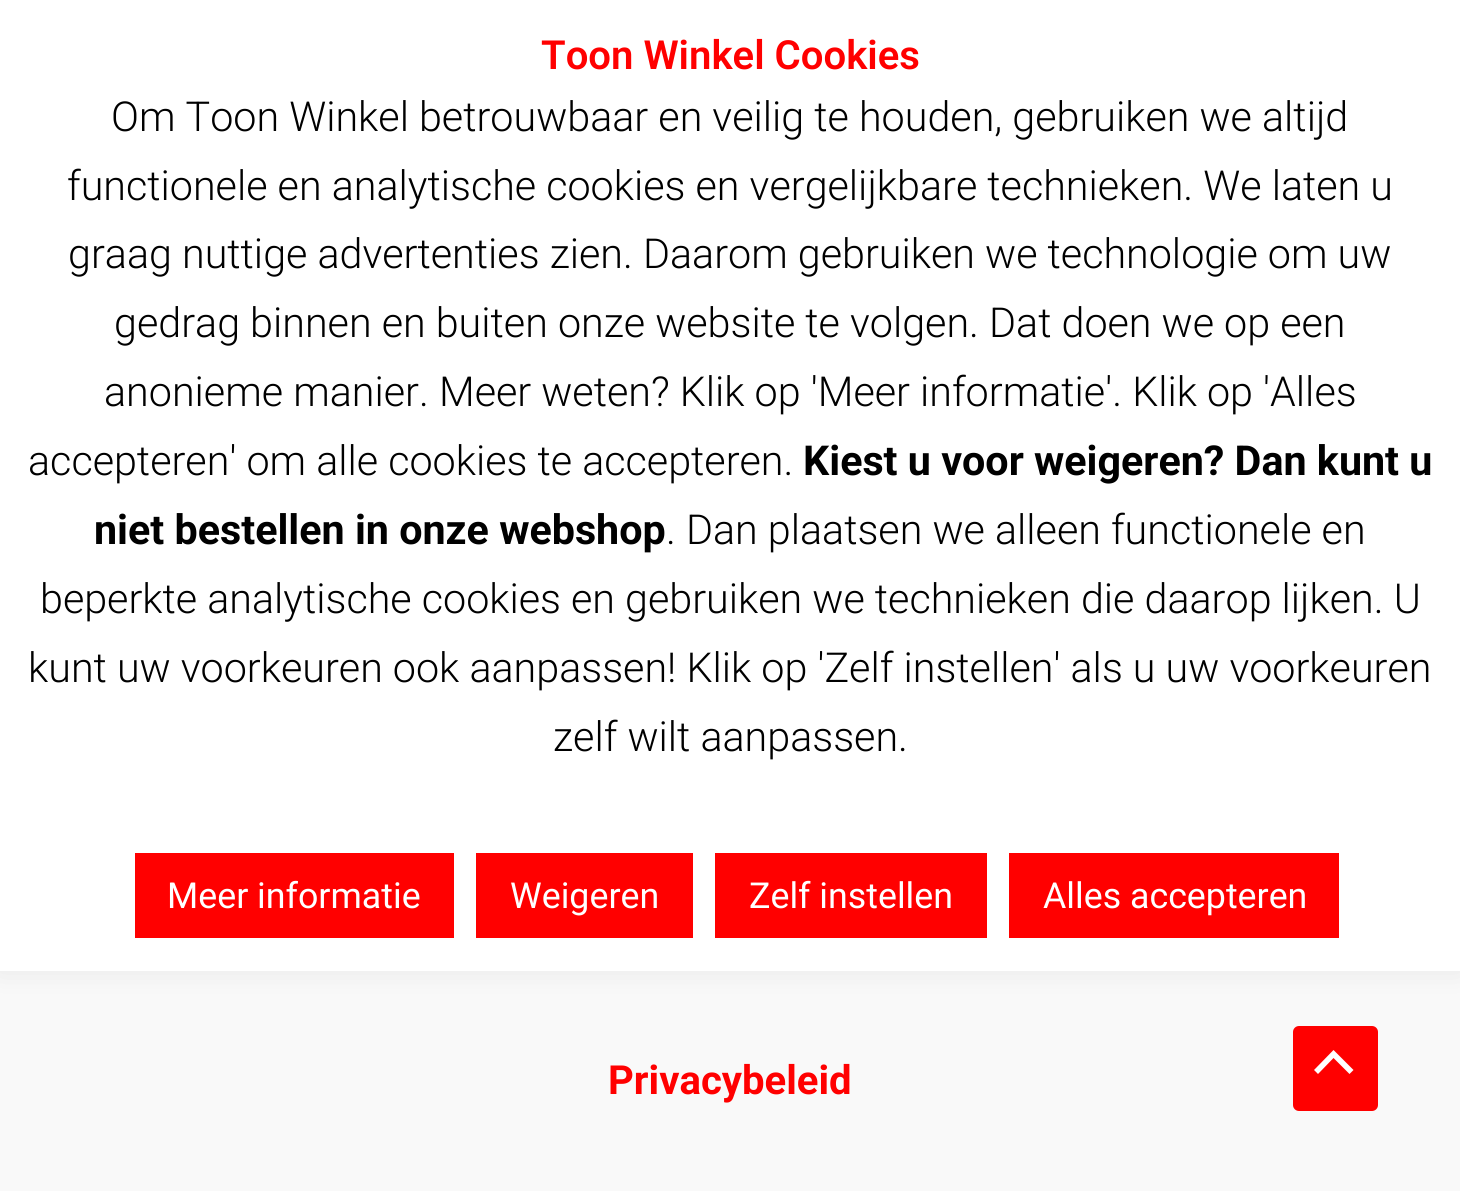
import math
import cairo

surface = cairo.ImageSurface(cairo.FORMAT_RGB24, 1460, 1191)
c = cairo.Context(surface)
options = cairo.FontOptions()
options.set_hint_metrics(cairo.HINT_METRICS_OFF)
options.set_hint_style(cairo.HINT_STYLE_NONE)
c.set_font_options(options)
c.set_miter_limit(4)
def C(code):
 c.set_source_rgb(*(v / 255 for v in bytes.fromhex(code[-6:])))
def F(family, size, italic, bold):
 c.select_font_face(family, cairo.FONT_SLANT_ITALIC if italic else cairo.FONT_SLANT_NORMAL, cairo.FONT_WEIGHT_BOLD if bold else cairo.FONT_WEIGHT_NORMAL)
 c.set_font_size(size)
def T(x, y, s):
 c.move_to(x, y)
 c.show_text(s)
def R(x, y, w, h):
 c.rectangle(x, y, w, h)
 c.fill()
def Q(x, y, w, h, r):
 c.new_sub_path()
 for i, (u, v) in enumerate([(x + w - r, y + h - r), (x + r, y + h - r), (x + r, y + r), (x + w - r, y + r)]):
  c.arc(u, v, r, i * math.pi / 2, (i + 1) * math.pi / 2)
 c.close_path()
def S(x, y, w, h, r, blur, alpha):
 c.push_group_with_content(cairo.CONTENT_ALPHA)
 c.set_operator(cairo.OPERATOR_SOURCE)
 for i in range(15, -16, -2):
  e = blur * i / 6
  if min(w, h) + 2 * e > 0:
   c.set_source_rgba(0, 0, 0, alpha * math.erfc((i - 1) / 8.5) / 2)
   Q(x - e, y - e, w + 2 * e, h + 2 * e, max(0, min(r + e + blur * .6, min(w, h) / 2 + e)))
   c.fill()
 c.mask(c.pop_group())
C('f9f9f9')
c.paint()
C('acabab')
S(0,-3,1460,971,0,14,.3)
C('ffffff')
R(0,0,1460,971)
F('Roboto SemiBold',40.1,0,0)
C('ff0000')
T(541,69,'Toon Winkel Cookies')
F('Roboto Light',41.25,0,0)
C('000000')
T(111,131,'Om Toon Winkel betrouwbaar en veilig te houden, gebruiken we altijd')
T(67,200,'functionele en analytische cookies en vergelijkbare technieken. We laten u')
T(68,268,'graag nuttige advertenties zien. Daarom gebruiken we technologie om uw')
T(114,337,'gedrag binnen en buiten onze website te volgen. Dat doen we op een')
T(104,406,'anonieme manier. Meer weten? Klik op \'Meer informatie\'. Klik op \'Alles')
T(28,475,'accepteren\' om alle cookies te accepteren.')
F('Roboto',41.25,0,1)
T(803,475,'Kiest u voor weigeren? Dan kunt u')
T(94,544,'niet bestellen in onze webshop')
F('Roboto Light',41.25,0,0)
T(666,544,'. Dan plaatsen we alleen functionele en')
T(40,613,'beperkte analytische cookies en gebruiken we technieken die daarop lijken. U')
T(28,682,'kunt uw voorkeuren ook aanpassen! Klik op \'Zelf instellen\' als u uw voorkeuren')
T(553,751,'zelf wilt aanpassen.')
C('ff0000')
R(135,853,319,85)
F('Roboto',35.75,0,0)
C('ffffff')
T(167,908,'Meer informatie')
C('ff0000')
R(476,853,217,85)
C('ffffff')
T(510,908,'Weigeren')
C('ff0000')
R(715,853,272,85)
C('ffffff')
T(749,908,'Zelf instellen')
C('ff0000')
R(1009,853,330,85)
C('ffffff')
T(1043,908,'Alles accepteren')
F('Roboto',40.1,0,1)
C('ff0000')
T(608,1094,'Privacybeleid')
Q(1293,1026,85,85,6)
c.fill()
C('ffffff')
c.new_path()
c.move_to(1353.5,1070)
c.line_to(1333.5,1050)
c.line_to(1314,1070)
c.line_to(1318,1074)
c.line_to(1333.5,1058)
c.line_to(1349.5,1074)
c.close_path()
c.fill()
surface.write_to_png('o.png')
